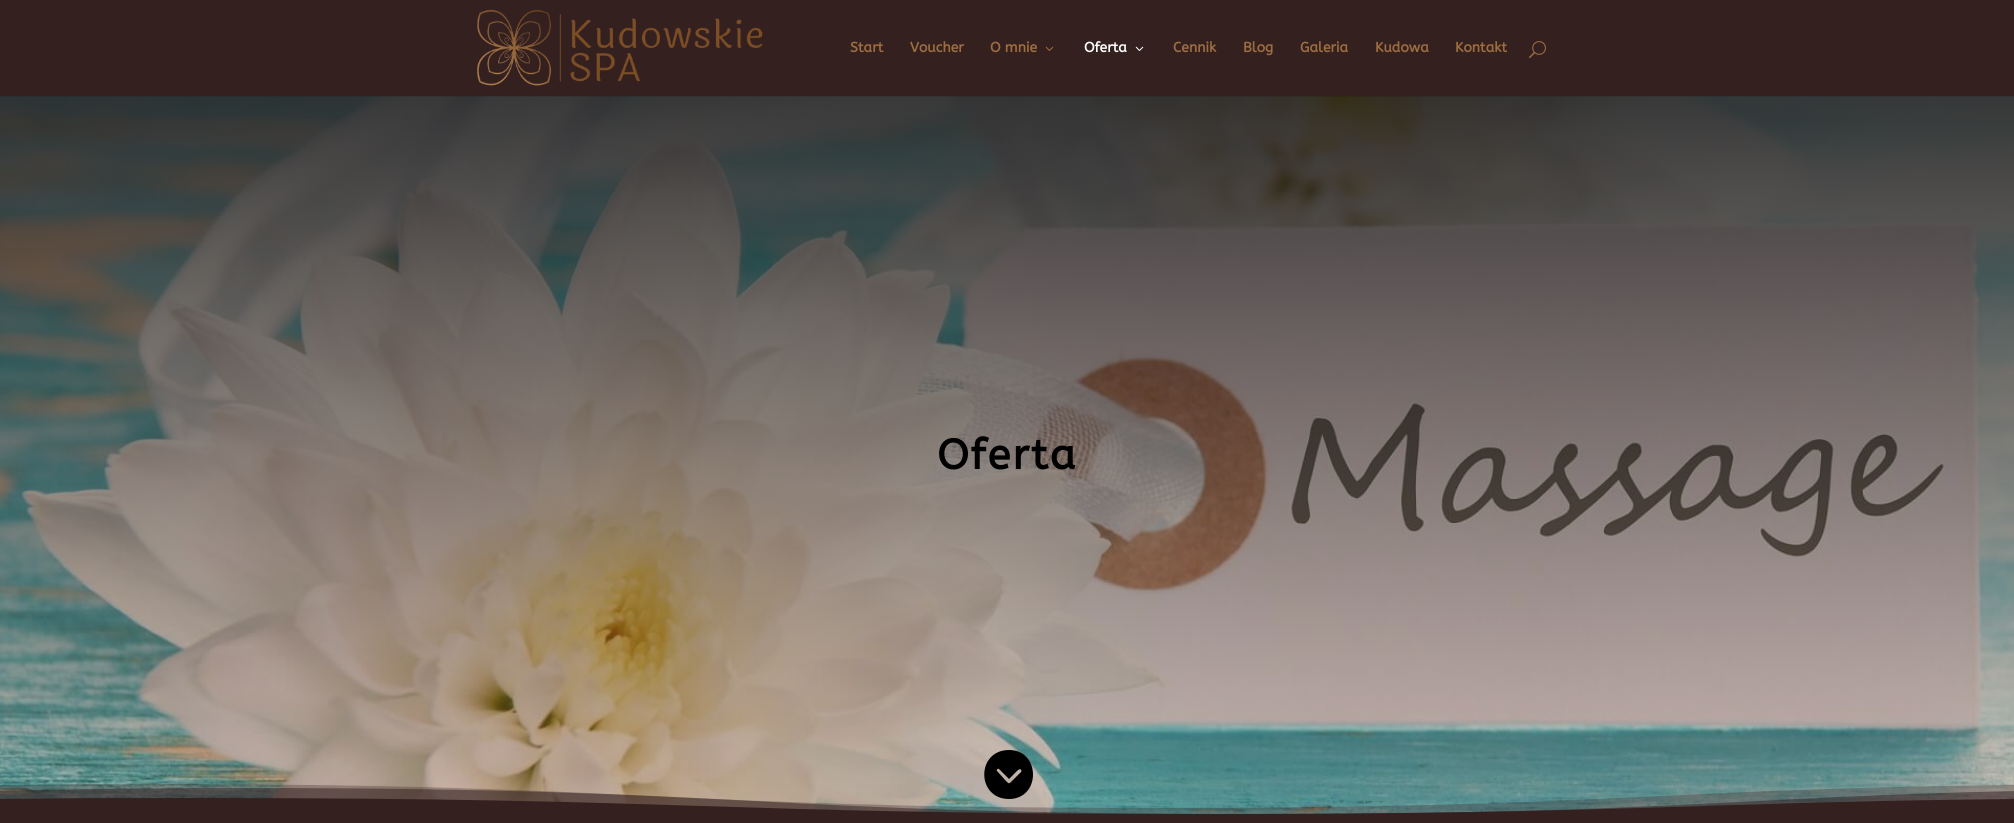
import math
import cairo

surface = cairo.ImageSurface(cairo.FORMAT_RGB24, 2014, 823)
c = cairo.Context(surface)
options = cairo.FontOptions()
options.set_hint_metrics(cairo.HINT_METRICS_OFF)
options.set_hint_style(cairo.HINT_STYLE_NONE)
c.set_font_options(options)
c.set_miter_limit(4)
def C(code):
 c.set_source_rgb(*(v / 255 for v in bytes.fromhex(code[-6:])))
def F(family, size, italic, bold):
 c.select_font_face(family, cairo.FONT_SLANT_ITALIC if italic else cairo.FONT_SLANT_NORMAL, cairo.FONT_WEIGHT_BOLD if bold else cairo.FONT_WEIGHT_NORMAL)
 c.set_font_size(size)
def T(x, y, s):
 c.move_to(x, y)
 c.show_text(s)
def L(x, y, s, letter, word):
 c.move_to(x, y)
 for ch in s:
  c.show_text(ch)
  c.rel_move_to(letter + word * (ch == ' '), 0)
def R(x, y, w, h):
 c.rectangle(x, y, w, h)
 c.fill()
def I(path, x, y, w, h):
 c.save()
 c.set_source_surface(cairo.ImageSurface.create_from_png(path), x, y)
 c.rectangle(x, y, w, h)
 c.fill()
 c.restore()
C('ffffff')
c.paint()
I('5.png',0,96,2014,718)
c.set_source_rgba(0,0,0,0.1)
R(0,96,2014,1)
C('352020')
R(0,0,2014,96)
I('1.png',477,9,286,77)
F('ABeeZee',14,0,1)
C('9c6d3f')
T(850,52,'Start')
T(910,52,'Voucher')
T(990,52,'O mnie')
I('2.png',1045,46,9,5)
C('ffffff')
T(1084,52,'Oferta')
I('3.png',1135,46,9,5)
C('9c6d3f')
T(1173,52,'Cennik')
T(1243,52,'Blog')
T(1300,52,'Galeria')
T(1375,52,'Kudowa')
T(1455,52,'Kontakt')
I('4.png',1529,41,17,18)
F('ABeeZee',42,0,1)
C('000000')
L(937,469,'Oferta',2,0)
c.new_path()
c.move_to(1009,750)
c.curve_to(976,750,976,799,1009,799)
c.curve_to(1041,799,1041,750,1009,750)
c.close_path()
c.move_to(1021,772)
c.line_to(1012,781)
c.curve_to(1009,784,1009,784,1006,781)
c.line_to(997,771)
c.curve_to(996,770,998,768,999,769)
c.line_to(1009,779)
c.line_to(1017,771)
c.curve_to(1021,767,1022,771,1021,772)
c.close_path()
c.fill()
c.set_source_rgba(0.208,0.125,0.125,0.3)
c.new_path()
c.move_to(2014,785)
c.curve_to(1653,789,1604,808,1156,808)
c.curve_to(652,808,652,784,149,784)
c.line_to(0,785)
c.line_to(0,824)
c.line_to(2014,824)
c.close_path()
c.fill()
c.set_source_rgba(0.208,0.125,0.125,0.5)
c.new_path()
c.move_to(0,791)
c.curve_to(68,789,149,788,249,788)
c.curve_to(753,788,753,814,1256,814)
c.curve_to(1659,814,1740,797,2014,791)
c.line_to(2014,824)
c.line_to(0,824)
c.close_path()
c.fill()
C('352020')
c.new_path()
c.move_to(2014,799)
c.curve_to(1698,802,1633,814,1206,814)
c.curve_to(702,814,702,798,199,798)
c.curve_to(122,798,57,798,0,799)
c.line_to(0,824)
c.line_to(2014,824)
c.close_path()
c.fill()
surface.write_to_png('o.png')
